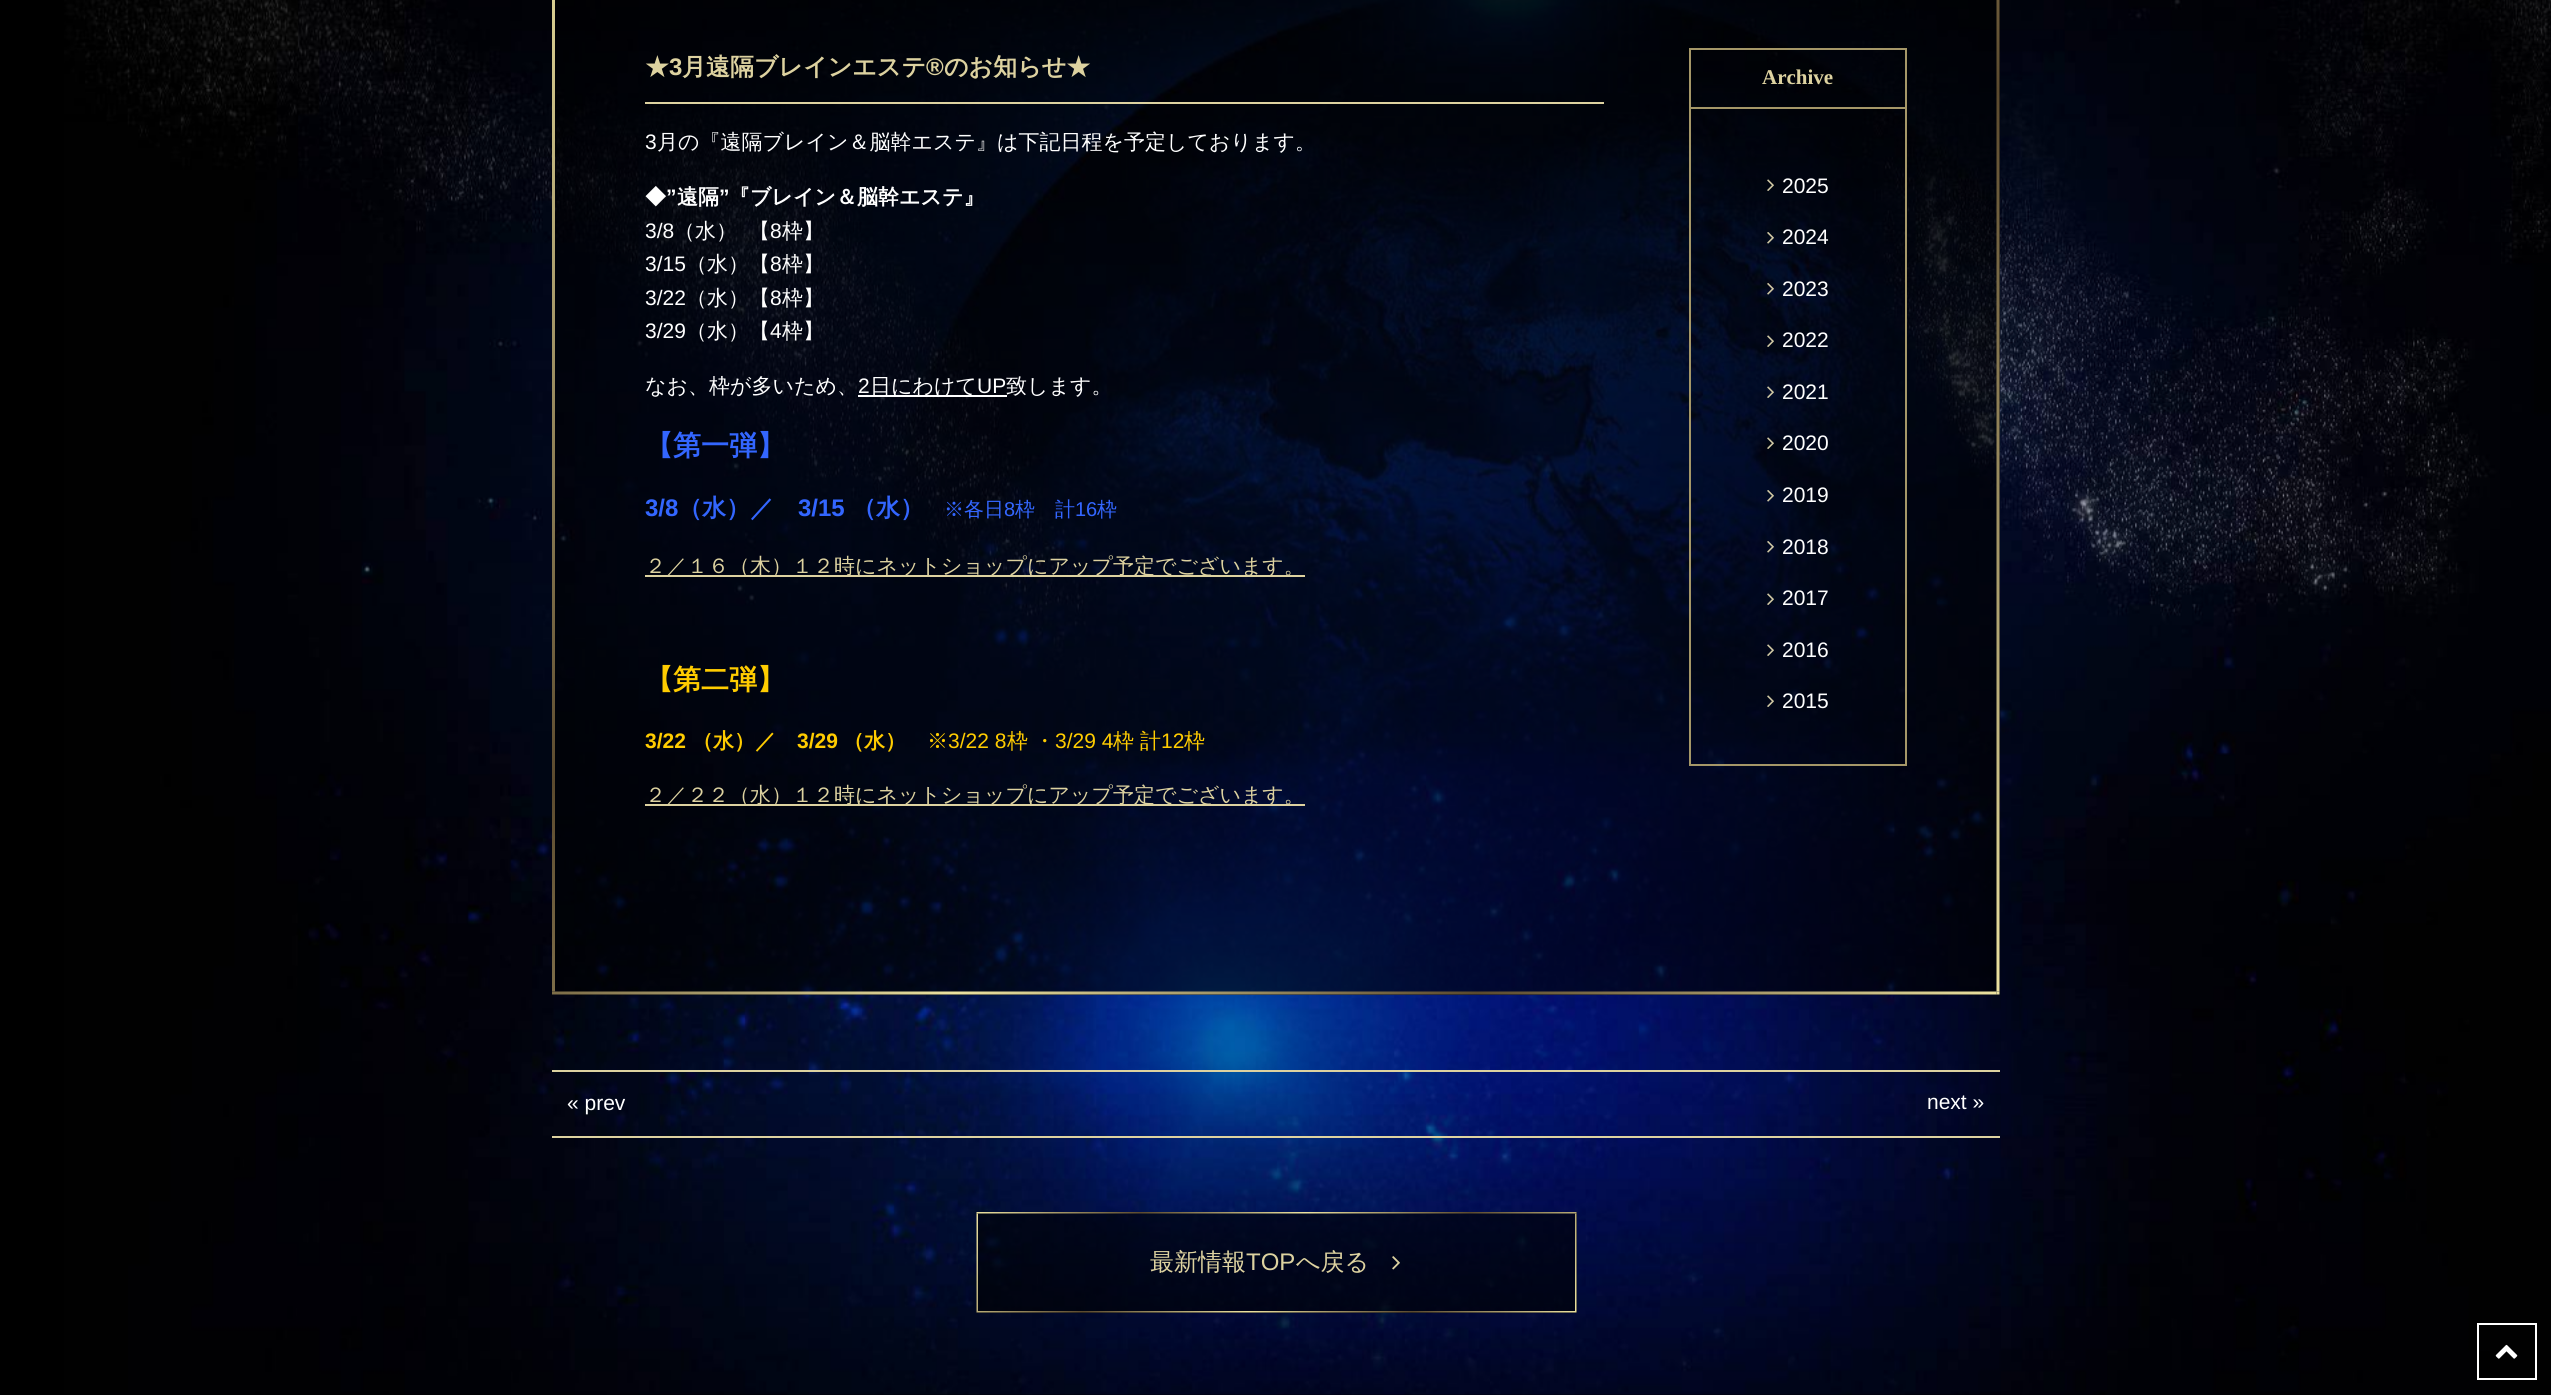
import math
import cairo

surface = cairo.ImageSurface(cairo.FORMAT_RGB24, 2551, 1395)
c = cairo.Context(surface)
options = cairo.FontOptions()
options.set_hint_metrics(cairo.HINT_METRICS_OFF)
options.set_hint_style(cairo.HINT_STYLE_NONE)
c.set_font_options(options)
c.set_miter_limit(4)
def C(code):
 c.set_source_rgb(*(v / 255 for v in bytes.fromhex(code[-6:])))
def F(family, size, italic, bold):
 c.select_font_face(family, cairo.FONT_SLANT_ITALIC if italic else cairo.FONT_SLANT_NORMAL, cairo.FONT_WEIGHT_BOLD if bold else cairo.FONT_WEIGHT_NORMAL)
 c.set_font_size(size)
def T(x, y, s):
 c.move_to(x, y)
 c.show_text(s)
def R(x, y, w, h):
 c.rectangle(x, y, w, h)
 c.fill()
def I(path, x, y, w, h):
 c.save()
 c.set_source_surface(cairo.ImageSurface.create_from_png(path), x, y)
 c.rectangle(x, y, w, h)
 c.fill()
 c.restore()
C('000000')
c.paint()
I('1.png',64,0,2487,1395)
c.set_source_rgba(0,0,0,0.6)
c.new_path()
c.move_to(552,-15)
c.line_to(2000,-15)
c.line_to(2000,980)
c.curve_to(2000,988.5,1993.5,995,1985,995)
c.line_to(567,995)
c.curve_to(558.5,995,552,988.5,552,980)
c.close_path()
c.fill()
I('2.png',552,0,1448,995)
C('ddd2a0')
R(645,102,959,2)
F('WenQuanYi Zen Hei',24,0,1)
T(645,75,'★')
F('Liberation Sans',24,0,1)
T(669,75,'3')
F('WenQuanYi Zen Hei',24,0,1)
T(682,75,'月遠隔ブレインエステ')
F('Liberation Sans',24,0,1)
T(926,75,'®')
F('WenQuanYi Zen Hei',24,0,1)
T(944,75,'のお知らせ★')
F('Liberation Sans',21,0,0)
C('ffffff')
T(645,149,'3')
F('WenQuanYi Zen Hei Medium',21,0,0)
T(657,149,'月の『遠隔ブレイン＆脳幹エステ』は下記日程を予定しております。')
F('WenQuanYi Zen Hei',21,0,1)
T(645,204,'◆')
F('Liberation Sans',21,0,1)
T(666,204,'”')
F('WenQuanYi Zen Hei',21,0,1)
T(677,204,'遠隔')
F('Liberation Sans',21,0,1)
T(719,204,'”')
F('WenQuanYi Zen Hei',21,0,1)
T(729,204,'『ブレイン＆脳幹エステ』')
F('Liberation Sans',21,0,0)
T(645,238,'3/8')
F('WenQuanYi Zen Hei Medium',21,0,0)
T(674,238,'（水）')
T(749,238,'【')
F('Liberation Sans',21,0,0)
T(770,238,'8')
F('WenQuanYi Zen Hei Medium',21,0,0)
T(782,238,'枠】')
F('Liberation Sans',21,0,0)
T(645,271,'3/15')
F('WenQuanYi Zen Hei Medium',21,0,0)
T(686,271,'（水）【')
F('Liberation Sans',21,0,0)
T(770,271,'8')
F('WenQuanYi Zen Hei Medium',21,0,0)
T(782,271,'枠】')
F('Liberation Sans',21,0,0)
T(645,305,'3/22')
F('WenQuanYi Zen Hei Medium',21,0,0)
T(686,305,'（水）【')
F('Liberation Sans',21,0,0)
T(770,305,'8')
F('WenQuanYi Zen Hei Medium',21,0,0)
T(782,305,'枠】')
F('Liberation Sans',21,0,0)
T(645,338,'3/29')
F('WenQuanYi Zen Hei Medium',21,0,0)
T(686,338,'（水）【')
F('Liberation Sans',21,0,0)
T(770,338,'4')
F('WenQuanYi Zen Hei Medium',21,0,0)
T(782,338,'枠】')
T(645,393,'なお、枠が多いため、')
F('Liberation Sans',21,0,0)
T(858,393,'2')
R(858,395,149,2)
F('WenQuanYi Zen Hei Medium',21,0,0)
T(870,393,'日にわけて')
F('Liberation Sans',21,0,0)
T(977,393,'UP')
F('WenQuanYi Zen Hei Medium',21,0,0)
T(1006,393,'致します。')
F('WenQuanYi Zen Hei',28,0,1)
C('3366ff')
T(645,455,'【第一弾】')
F('Liberation Sans',24,0,1)
T(645,516,'3/8')
F('WenQuanYi Zen Hei',24,0,1)
T(678,516,'（水）／')
F('Liberation Sans',24,0,1)
T(798,516,'3/15')
F('WenQuanYi Zen Hei',24,0,1)
T(852,516,'（水）')
F('WenQuanYi Zen Hei Medium',20,0,0)
T(944,516,'※各日')
F('Liberation Sans',20,0,0)
T(1004,516,'8')
F('WenQuanYi Zen Hei Medium',20,0,0)
T(1015,516,'枠　計')
F('Liberation Sans',20,0,0)
T(1075,516,'16')
F('WenQuanYi Zen Hei Medium',20,0,0)
T(1097,516,'枠')
C('ddd2a0')
R(645,575,660,2)
F('WenQuanYi Zen Hei Medium',21,0,0)
T(645,573,'２／１６（木）１２時にネットショップにアップ予定でございます。')
F('WenQuanYi Zen Hei',28,0,1)
C('ffcc00')
T(645,689,'【第二弾】')
F('Liberation Sans',21,0,1)
T(645,748,'3/22')
F('WenQuanYi Zen Hei',21,0,1)
T(692,748,'（水）／')
F('Liberation Sans',21,0,1)
T(797,748,'3/29')
F('WenQuanYi Zen Hei',21,0,1)
T(843,748,'（水）')
F('WenQuanYi Zen Hei Medium',21,0,0)
T(927,748,'※')
F('Liberation Sans',21,0,0)
T(948,748,'3/22 8')
F('WenQuanYi Zen Hei Medium',21,0,0)
T(1007,748,'枠')
T(1034,748,'・')
F('Liberation Sans',21,0,0)
T(1055,748,'3/29 4')
F('WenQuanYi Zen Hei Medium',21,0,0)
T(1113,748,'枠')
T(1140,748,'計')
F('Liberation Sans',21,0,0)
T(1161,748,'12')
F('WenQuanYi Zen Hei Medium',21,0,0)
T(1184,748,'枠')
C('ddd2a0')
R(645,804,660,2)
T(645,802,'２／２２（水）１２時にネットショップにアップ予定でございます。')
C('a59768')
R(1905,48,2,717)
R(1689,764,218,2)
R(1689,48,2,717)
R(1691,48,214,2)
R(1691,107,214,2)
F('Liberation Serif',21,0,1)
C('ddd2a0')
T(1762,84,'Archive')
I('3.png',1767,179,7,12)
F('Liberation Sans',21,0,0)
C('ffffff')
T(1782,193,'2025')
I('4.png',1767,232,7,12)
T(1782,244,'2024')
I('5.png',1767,283,7,12)
T(1782,296,'2023')
I('6.png',1767,335,7,12)
T(1782,347,'2022')
I('7.png',1767,386,7,12)
T(1782,399,'2021')
I('8.png',1767,437,7,12)
T(1782,450,'2020')
I('9.png',1767,490,7,12)
T(1782,502,'2019')
I('10.png',1767,541,7,12)
T(1782,554,'2018')
I('11.png',1767,593,7,12)
T(1782,605,'2017')
I('12.png',1767,644,7,12)
T(1782,657,'2016')
I('13.png',1767,695,7,12)
T(1782,708,'2015')
C('ddd2a0')
R(552,1070,1448,2)
R(552,1136,1448,2)
C('ffffff')
T(567,1110,'« prev')
T(1927,1109,'next »')
c.set_source_rgba(0,0,0,0.6)
R(977,1212,600,101)
I('14.png',976,1212,601,101)
F('WenQuanYi Zen Hei Medium',24,0,0)
C('ddd2a0')
T(1150,1270,'最新情報')
F('Liberation Sans',24,0,0)
T(1246,1270,'TOP')
F('WenQuanYi Zen Hei Medium',24,0,0)
T(1296,1270,'へ戻る')
I('15.png',1392,1256,8,14)
C('000000')
R(2479,1351,11,27)
c.rectangle(2478,1324,58,55)
C('ffffff')
c.stroke()
I('16.png',2495,1344,23,15)
surface.write_to_png('o.png')
